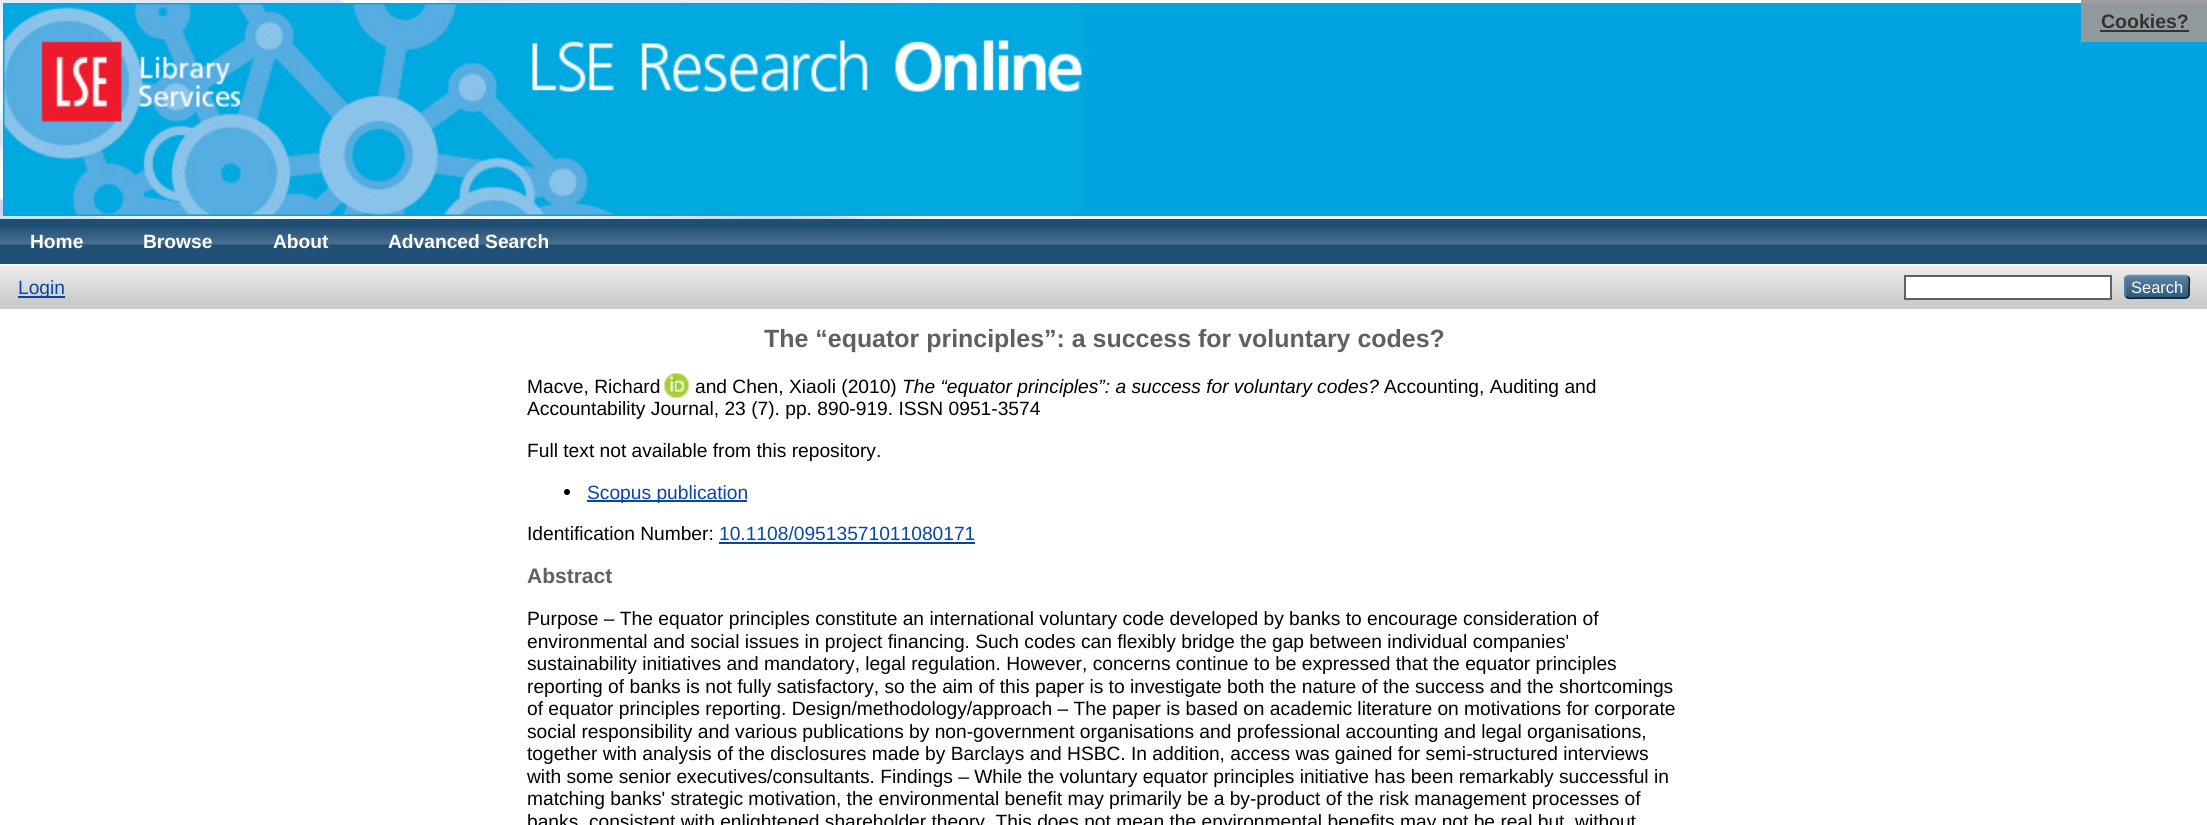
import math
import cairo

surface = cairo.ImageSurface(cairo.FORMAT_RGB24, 2207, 825)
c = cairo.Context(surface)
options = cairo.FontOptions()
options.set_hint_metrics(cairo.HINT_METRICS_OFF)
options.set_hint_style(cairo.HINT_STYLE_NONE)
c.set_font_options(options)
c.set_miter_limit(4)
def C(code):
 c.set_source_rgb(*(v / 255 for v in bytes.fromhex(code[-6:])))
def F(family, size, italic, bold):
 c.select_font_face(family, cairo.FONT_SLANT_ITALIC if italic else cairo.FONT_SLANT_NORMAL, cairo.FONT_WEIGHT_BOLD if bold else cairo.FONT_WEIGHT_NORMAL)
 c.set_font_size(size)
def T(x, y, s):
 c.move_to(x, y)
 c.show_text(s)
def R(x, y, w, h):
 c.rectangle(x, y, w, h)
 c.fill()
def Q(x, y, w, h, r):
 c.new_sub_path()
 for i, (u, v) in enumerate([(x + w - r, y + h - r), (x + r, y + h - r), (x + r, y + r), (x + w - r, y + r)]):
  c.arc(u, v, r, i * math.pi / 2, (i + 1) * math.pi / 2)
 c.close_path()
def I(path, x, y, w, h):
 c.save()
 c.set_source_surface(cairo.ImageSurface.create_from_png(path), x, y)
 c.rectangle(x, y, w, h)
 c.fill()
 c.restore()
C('ffffff')
c.paint()
C('9e9e9e')
R(2081,0,126,3)
I('1.png',0,0,944,219)
C('00a5df')
R(3,3,2204,213)
C('919a9d')
R(2081,3,126,39)
I('2.png',4,4,1081,211)
F('Liberation Sans',19.5,0,1)
C('333333')
T(2101,28,'Cookies?')
R(2100,30,89,2)
C('204f76')
R(0,219,2207,45)
I('3.png',0,228,2207,17)
F('Liberation Sans',19.2,0,1)
C('ffffff')
T(30,248,'Home')
T(143,248,'Browse')
T(273,248,'About')
T(388,248,'Advanced Search')
C('cccccc')
R(0,266,2207,43)
I('4.png',0,266,2207,32)
C('0645ad')
R(18,296,47,2)
F('Liberation Sans',19.2,0,0)
T(18,294,'Login')
C('ffffff')
c.rectangle(1905,276,206,23)
c.fill_preserve()
C('606060')
c.stroke()
C('1f4f76')
Q(2124,275,66,24,5)
c.fill()
I('5.png',2124,275,66,23)
c.new_path()
c.move_to(2126,276.5)
c.line_to(2128,275.5)
c.line_to(2186,275.5)
c.line_to(2188,276.5)
C('5b97c7')
c.set_line_width(1.5)
c.stroke()
c.new_path()
c.move_to(2188,276.5)
c.curve_to(2190.5,278.5,2189,283.5,2189,286.5)
c.curve_to(2189,299.5,2190,298,2176,298)
c.line_to(2138,298)
c.curve_to(2137.5,298,2128.5,299.5,2126,296.5)
C('0d2131')
c.stroke()
c.new_path()
c.move_to(2126,296.5)
c.curve_to(2125,296,2125,295,2125,294)
c.line_to(2125,279)
c.curve_to(2125,278,2125,277,2126,276.5)
C('5287b3')
c.stroke()
F('Liberation Sans',16.5,0,0)
C('ffffff')
T(2131,293,'Search')
F('Liberation Sans',24.95,0,1)
C('606060')
T(764,347,'The “equator principles”: a success for voluntary codes?')
F('Liberation Sans',19.2,0,0)
C('000000')
T(527,393,'Macve, Richard')
I('6.png',664,373,25,25)
T(695,393,'and Chen, Xiaoli (2010)')
F('Liberation Sans',19.2,1,0)
T(902,393,'The “equator principles”: a success for voluntary codes?')
F('Liberation Sans',19.2,0,0)
T(1384,393,'Accounting, Auditing and')
T(527,415,'Accountability Journal, 23 (7). pp. 890-919. ISSN 0951-3574')
T(527,457,'Full text not available from this repository.')
c.new_path()
c.arc(567,492,3,0,2 * math.pi)
c.fill()
C('0645ad')
R(587,500,160,2)
T(587,499,'Scopus publication')
C('000000')
T(527,540,'Identification Number:')
C('0645ad')
T(719,540,'10.1108/09513571011080171')
R(719,542,256,2)
F('Liberation Sans',21,0,1)
C('606060')
T(527,583,'Abstract')
F('Liberation Sans',19.2,0,0)
C('000000')
T(527,625,'Purpose – The equator principles constitute an international voluntary code developed by banks to encourage consideration of')
T(527,648,'environmental and social issues in project financing. Such codes can flexibly bridge the gap between individual companies\'')
T(527,670,'sustainability initiatives and mandatory, legal regulation. However, concerns continue to be expressed that the equator principles')
T(527,693,'reporting of banks is not fully satisfactory, so the aim of this paper is to investigate both the nature of the success and the shortcomings')
T(527,715,'of equator principles reporting. Design/methodology/approach – The paper is based on academic literature on motivations for corporate')
T(527,738,'social responsibility and various publications by non-government organisations and professional accounting and legal organisations,')
T(527,760,'together with analysis of the disclosures made by Barclays and HSBC. In addition, access was gained for semi-structured interviews')
T(527,783,'with some senior executives/consultants. Findings – While the voluntary equator principles initiative has been remarkably successful in')
T(527,805,'matching banks\' strategic motivation, the environmental benefit may primarily be a by-product of the risk management processes of')
T(527,828,'banks, consistent with enlightened shareholder theory. This does not mean the environmental benefits may not be real but, without')
surface.write_to_png('o.png')
